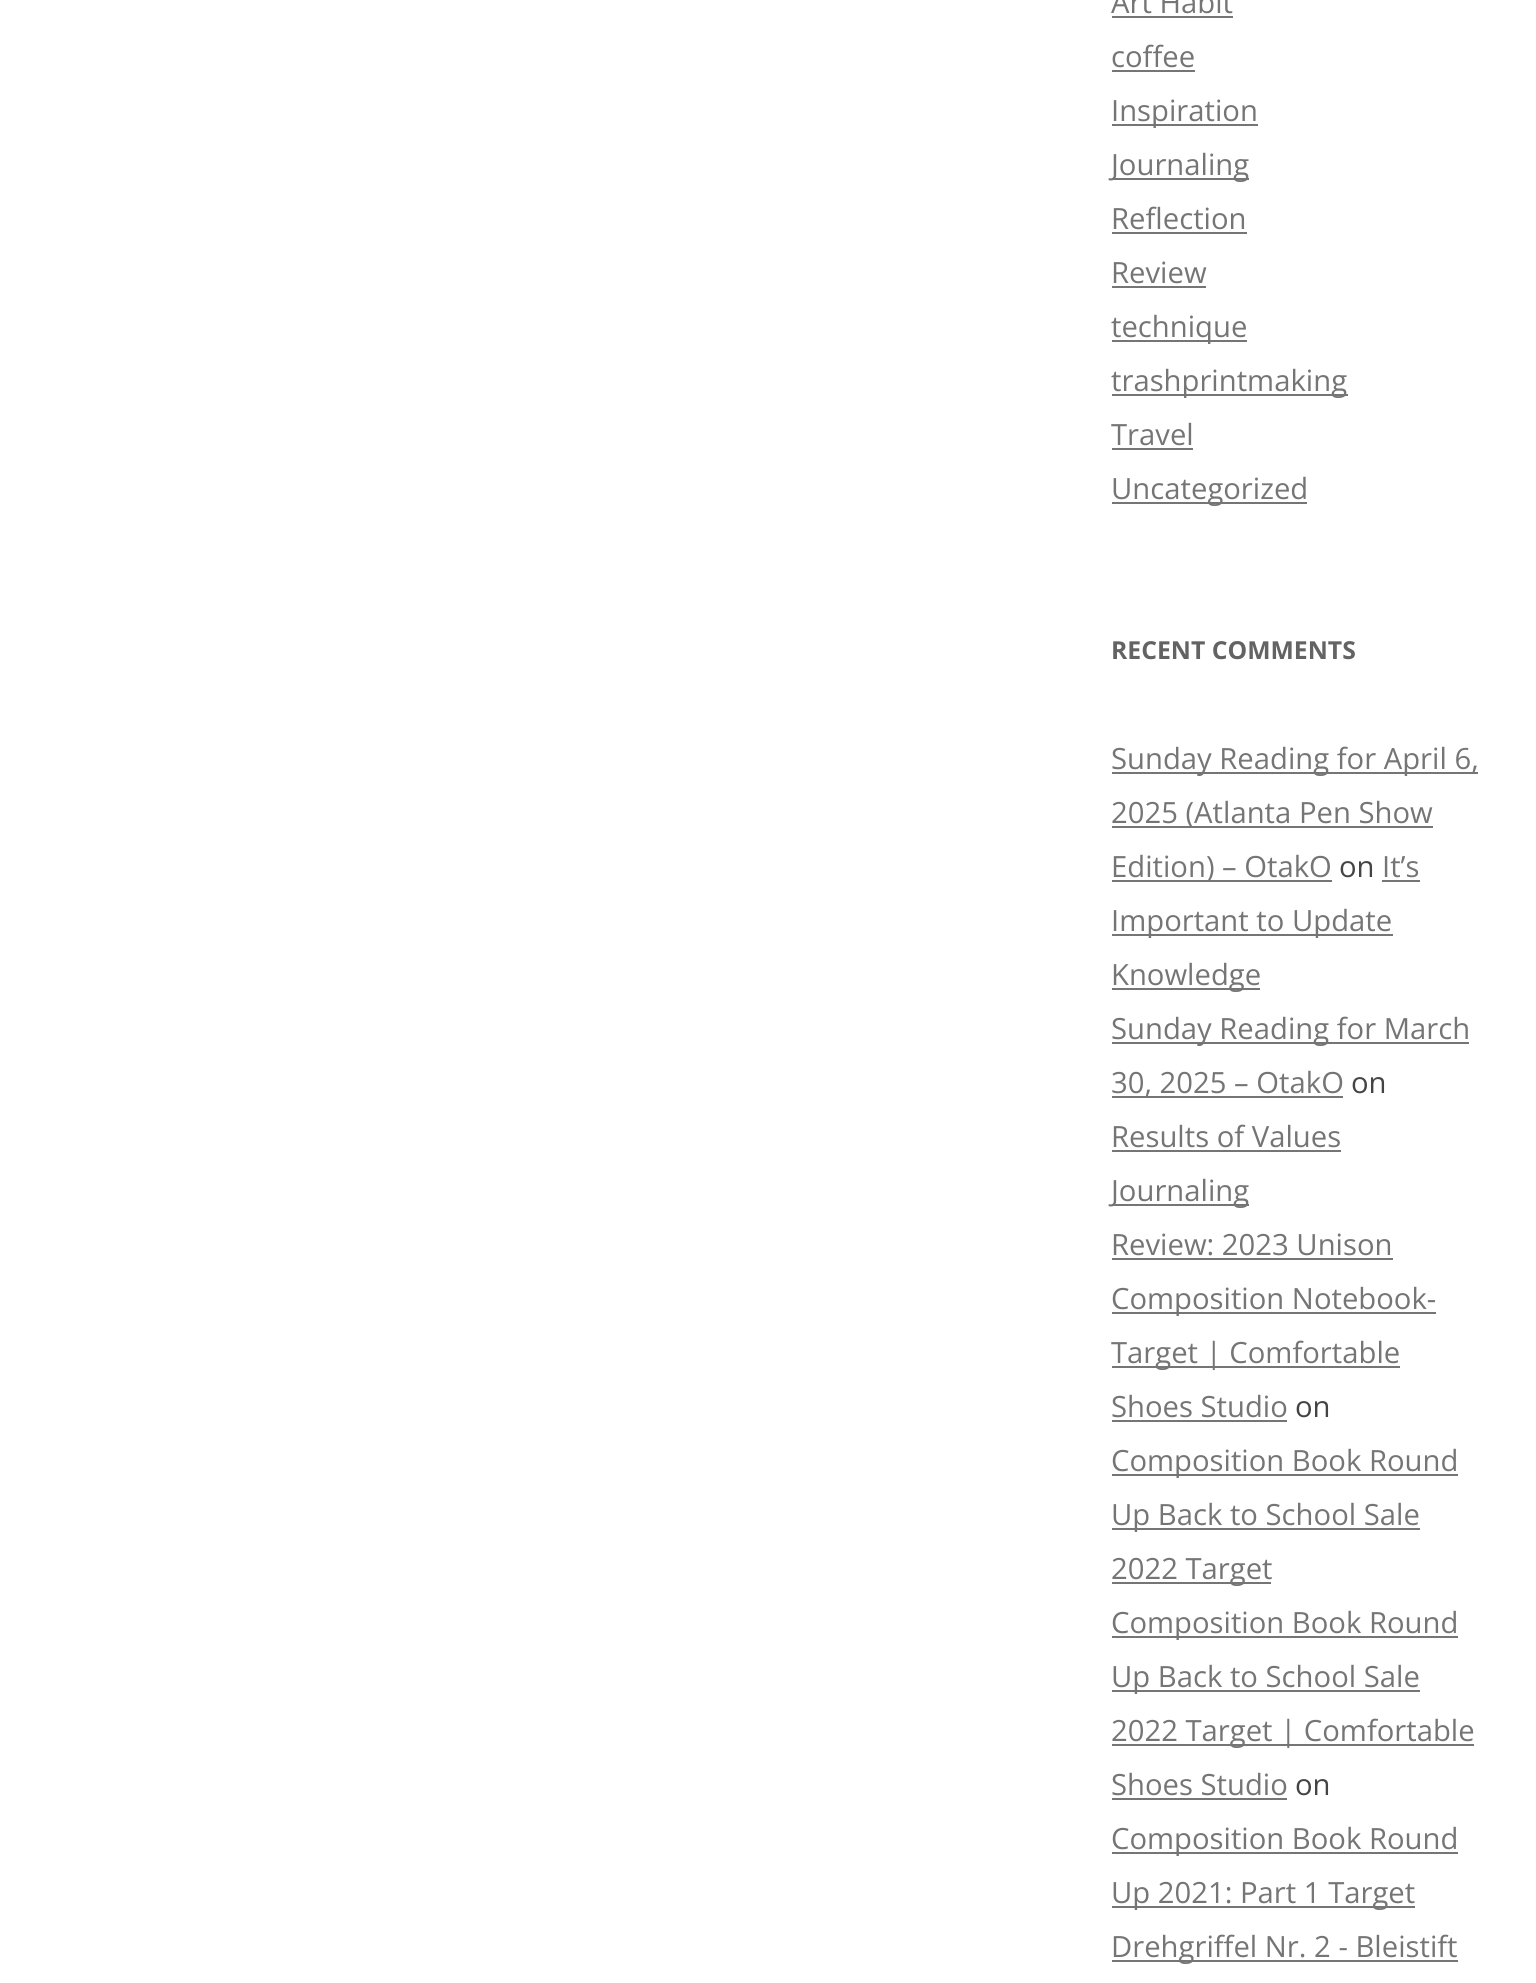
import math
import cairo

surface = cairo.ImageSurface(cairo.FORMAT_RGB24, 1536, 1983)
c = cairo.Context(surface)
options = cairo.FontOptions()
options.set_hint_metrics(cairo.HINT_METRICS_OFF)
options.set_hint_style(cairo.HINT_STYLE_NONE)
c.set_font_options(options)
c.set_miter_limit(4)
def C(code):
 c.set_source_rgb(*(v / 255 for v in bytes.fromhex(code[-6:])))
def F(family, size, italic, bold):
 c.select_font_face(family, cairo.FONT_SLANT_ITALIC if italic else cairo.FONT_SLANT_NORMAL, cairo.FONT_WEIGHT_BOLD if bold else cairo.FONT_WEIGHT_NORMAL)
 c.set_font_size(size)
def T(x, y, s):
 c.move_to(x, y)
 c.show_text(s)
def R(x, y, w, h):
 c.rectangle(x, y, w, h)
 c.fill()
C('ffffff')
c.paint()
F('Open Sans',29.25,0,0)
C('757575')
T(1111,13,'Art Habit')
R(1112,16,121,2)
T(1111,67,'coffee')
R(1112,70,83,2)
R(1112,124,146,2)
T(1111,121,'Inspiration')
R(1112,178,137,2)
T(1111,175,'Journaling')
T(1111,229,'Reflection')
R(1112,232,135,2)
T(1111,283,'Review')
R(1112,286,94,2)
R(1112,340,135,2)
T(1111,337,'technique')
R(1112,394,236,2)
T(1111,391,'trashprintmaking')
T(1111,445,'Travel')
R(1112,448,81,2)
R(1112,502,195,2)
T(1111,499,'Uncategorized')
F('Open Sans',24.75,0,1)
C('636363')
T(1111,659,'RECENT COMMENTS')
C('757575')
R(1112,772,366,2)
F('Open Sans',29.25,0,0)
T(1111,769,'Sunday Reading for April 6,')
R(1112,826,321,2)
T(1111,823,'2025 (Atlanta Pen Show')
R(1112,880,220,2)
T(1111,877,'Edition) – OtakO')
C('444444')
T(1339,877,'on')
C('757575')
T(1382,877,'It’s')
R(1382,880,38,2)
R(1112,934,281,2)
T(1111,931,'Important to Update')
R(1112,988,148,2)
T(1111,985,'Knowledge')
R(1112,1042,357,2)
T(1111,1039,'Sunday Reading for March')
R(1112,1096,231,2)
T(1111,1093,'30, 2025 – OtakO')
C('444444')
T(1351,1093,'on')
C('757575')
T(1111,1147,'Results of Values')
R(1112,1150,229,2)
R(1112,1204,137,2)
T(1111,1201,'Journaling')
T(1111,1255,'Review: 2023 Unison')
R(1112,1258,281,2)
R(1112,1312,324,2)
T(1111,1309,'Composition Notebook-')
R(1112,1366,288,2)
T(1111,1363,'Target | Comfortable')
T(1111,1417,'Shoes Studio')
R(1112,1420,175,2)
C('444444')
T(1295,1417,'on')
C('757575')
R(1112,1474,346,2)
T(1111,1471,'Composition Book Round')
R(1112,1528,308,2)
T(1111,1525,'Up Back to School Sale')
R(1112,1582,159,2)
T(1111,1579,'2022 Target')
R(1112,1636,346,2)
T(1111,1633,'Composition Book Round')
R(1112,1690,308,2)
T(1111,1687,'Up Back to School Sale')
R(1112,1744,362,2)
T(1111,1741,'2022 Target | Comfortable')
T(1111,1795,'Shoes Studio')
R(1112,1798,175,2)
C('444444')
T(1295,1795,'on')
C('757575')
R(1112,1852,346,2)
T(1111,1849,'Composition Book Round')
R(1112,1906,303,2)
T(1111,1903,'Up 2021: Part 1 Target')
R(1112,1960,346,2)
T(1111,1957,'Drehgriffel Nr. 2 - Bleistift')
surface.write_to_png('o.png')
